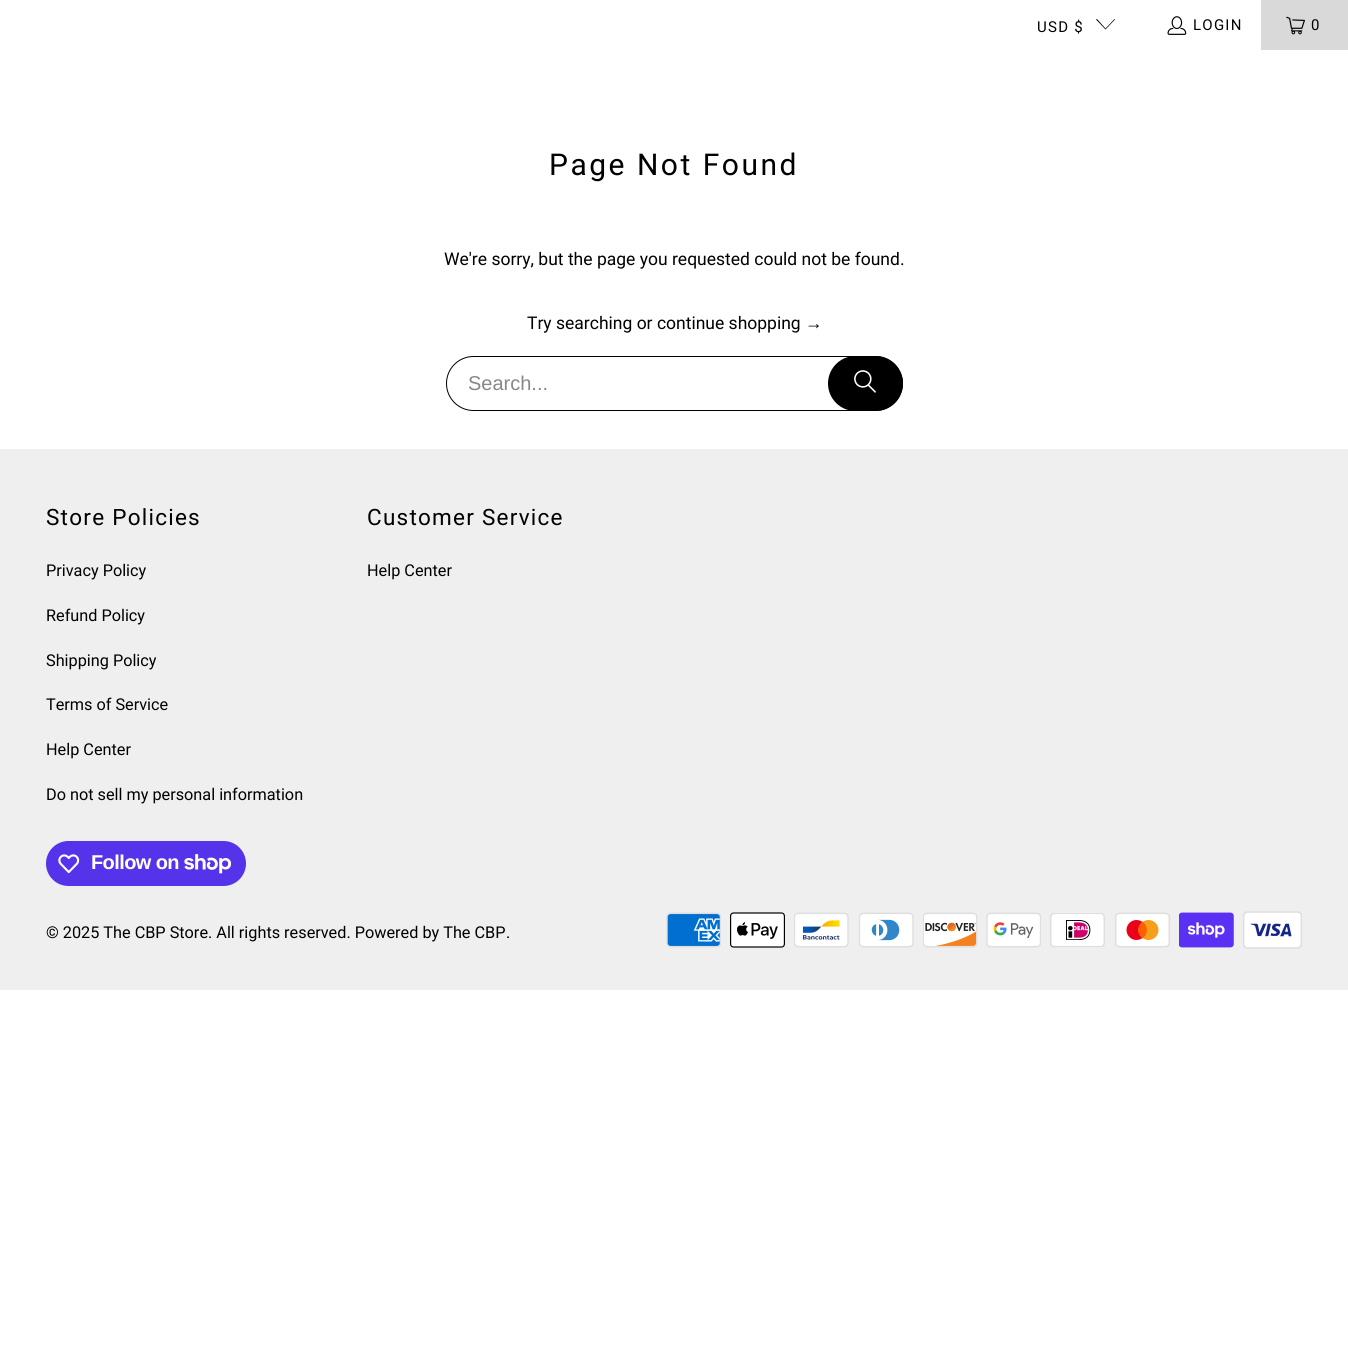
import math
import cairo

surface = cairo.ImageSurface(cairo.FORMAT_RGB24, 1348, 1359)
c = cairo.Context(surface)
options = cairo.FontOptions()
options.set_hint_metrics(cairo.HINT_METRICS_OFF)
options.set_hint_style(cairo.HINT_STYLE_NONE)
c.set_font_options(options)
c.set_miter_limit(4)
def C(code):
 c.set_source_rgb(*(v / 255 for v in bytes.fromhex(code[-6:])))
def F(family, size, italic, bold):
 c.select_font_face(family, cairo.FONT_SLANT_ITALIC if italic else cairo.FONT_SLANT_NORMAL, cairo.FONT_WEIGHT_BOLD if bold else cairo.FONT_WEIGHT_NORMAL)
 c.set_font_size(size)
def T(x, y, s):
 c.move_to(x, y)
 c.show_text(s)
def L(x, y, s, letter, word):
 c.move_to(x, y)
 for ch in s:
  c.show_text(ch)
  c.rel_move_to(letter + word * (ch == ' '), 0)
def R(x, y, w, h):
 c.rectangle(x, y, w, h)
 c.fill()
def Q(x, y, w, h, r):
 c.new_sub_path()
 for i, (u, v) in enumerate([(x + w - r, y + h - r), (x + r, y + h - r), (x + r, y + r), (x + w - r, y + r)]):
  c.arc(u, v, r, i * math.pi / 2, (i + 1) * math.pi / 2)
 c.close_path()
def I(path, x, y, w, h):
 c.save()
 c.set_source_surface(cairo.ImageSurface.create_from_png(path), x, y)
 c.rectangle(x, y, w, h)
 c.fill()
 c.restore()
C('ffffff')
c.paint()
F('Roboto',15,0,0)
C('000000')
L(1037,32,'USD $',1.25,0)
c.new_path()
c.move_to(1105.5,29.5)
c.line_to(1096,19.5)
c.line_to(1097,19)
c.line_to(1105.5,28.5)
c.line_to(1114.5,19)
c.line_to(1115,19.5)
c.close_path()
c.fill()
I('1.png',1167,16,20,19)
L(1193,30,'LOGIN',1.25,0)
C('d9d9d9')
R(1261,0,87,50)
I('2.png',1286,16,19,19)
C('000000')
L(1311,30,'0',1.25,0)
F('Roboto',30,0,0)
L(549,175,'Page Not Found',2.5,0)
F('Roboto',17.5,0,0)
T(444,265,'We\'re sorry, but the page you requested could not be found.')
T(527,329,'Try searching or continue shopping')
F('Liberation Sans',17.5,0,0)
T(805,329,'→')
Q(446.5,356.5,456,54,27)
c.set_line_width(1)
c.stroke()
F('Liberation Sans',20,0,0)
C('888888')
T(468,390,'Search...')
C('000000')
Q(828,356,75,55,27.5)
c.fill()
I('3.png',854,370,22,23)
C('efefef')
R(0,449,1348,541)
F('Roboto',22.5,0,0)
C('000000')
L(46,525,'Store Policies',1.25,0)
F('Roboto',16.25,0,0)
T(46,576,'Privacy Policy')
T(46,621,'Refund Policy')
T(46,666,'Shipping Policy')
T(46,710,'Terms of Service')
T(46,755,'Help Center')
T(46,800,'Do not sell my personal information')
F('Roboto',22.5,0,0)
L(367,525,'Customer Service',1.25,0)
F('Roboto',16.25,0,0)
T(367,576,'Help Center')
C('5433eb')
Q(46,841,200,45,22.5)
c.fill()
I('4.png',58,854,22,20)
F('Liberation Sans',20,0,1)
C('ffffff')
L(91,869,'Follow on',-.6,0)
I('5.png',184,854,47,20)
F('Roboto',16.25,0,0)
C('000000')
T(46,938,'© 2025 The CBP Store')
T(208,938,'. All rights reserved. Powered by The CBP')
T(506,938,'.')
I('6.png',666,912,55,36)
I('7.png',730,912,55,36)
I('8.png',794,912,55,36)
I('9.png',859,912,55,36)
I('10.png',923,912,55,36)
I('11.png',986,912,55,36)
I('12.png',1050,913,55,34)
I('13.png',1115,912,55,36)
I('14.png',1179,912,55,36)
I('15.png',1243,911,59,38)
surface.write_to_png('o.png')
